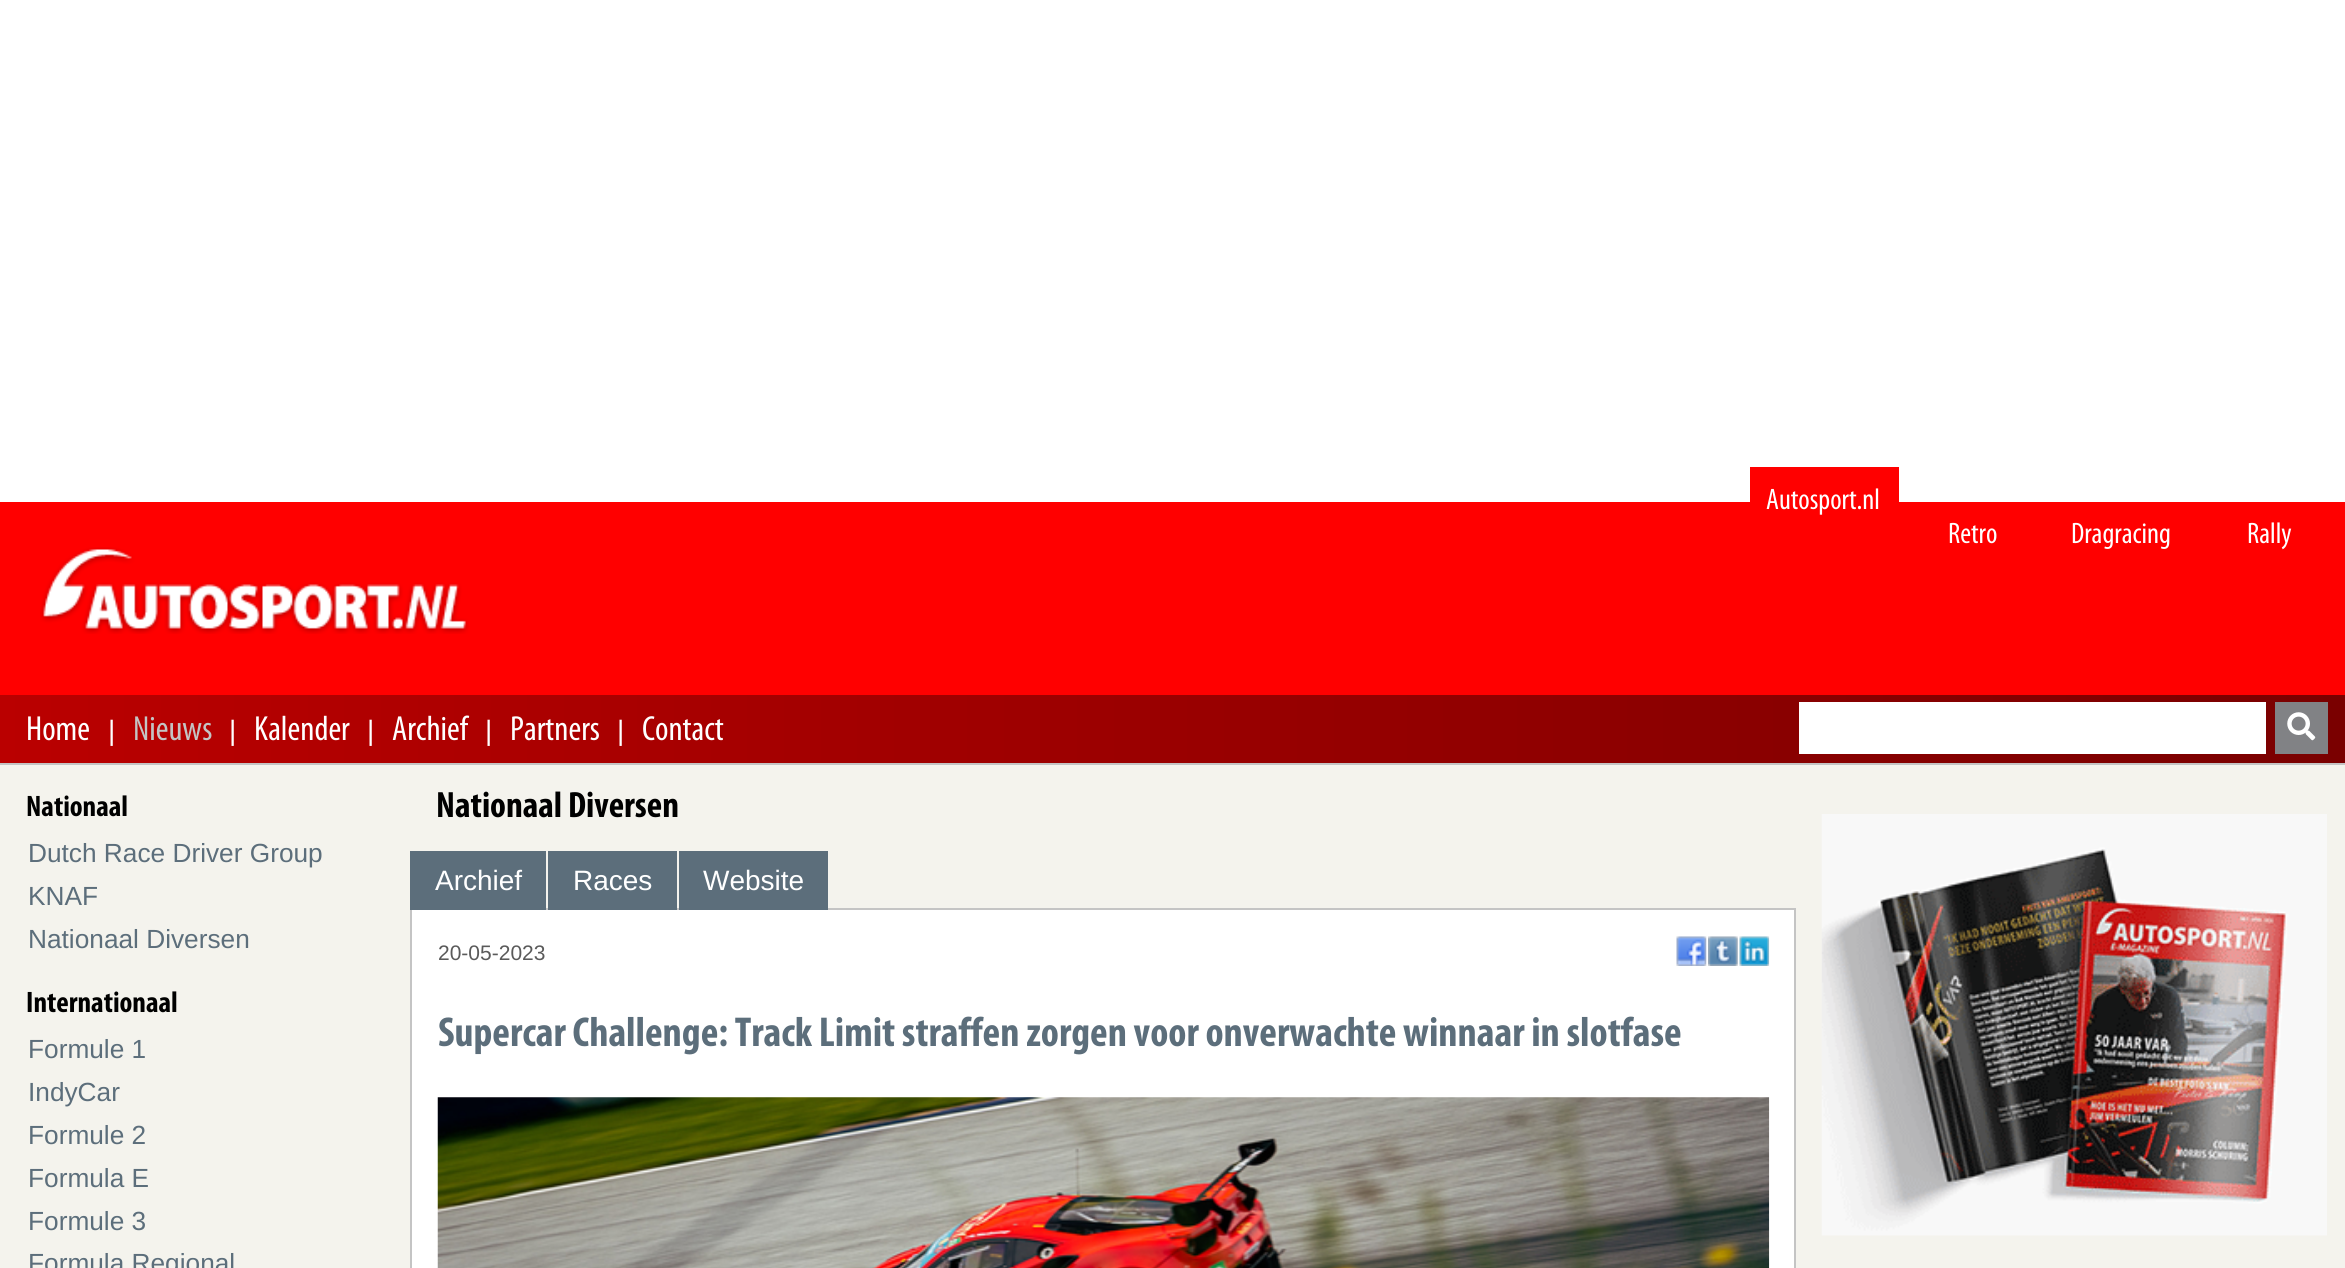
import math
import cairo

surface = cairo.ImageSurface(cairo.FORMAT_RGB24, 2345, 1268)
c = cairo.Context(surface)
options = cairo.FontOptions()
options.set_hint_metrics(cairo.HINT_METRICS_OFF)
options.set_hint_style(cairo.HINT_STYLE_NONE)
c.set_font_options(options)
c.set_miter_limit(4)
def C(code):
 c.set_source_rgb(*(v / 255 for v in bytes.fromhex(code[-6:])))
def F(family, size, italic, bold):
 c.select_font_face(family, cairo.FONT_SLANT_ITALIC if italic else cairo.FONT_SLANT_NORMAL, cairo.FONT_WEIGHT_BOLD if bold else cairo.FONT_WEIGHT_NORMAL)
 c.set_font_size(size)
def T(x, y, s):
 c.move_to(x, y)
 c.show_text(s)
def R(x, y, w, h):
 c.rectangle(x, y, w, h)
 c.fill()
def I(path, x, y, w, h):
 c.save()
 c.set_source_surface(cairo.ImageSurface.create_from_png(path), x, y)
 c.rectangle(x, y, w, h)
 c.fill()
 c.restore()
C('f4f3ed')
c.paint()
C('c4c4c4')
R(0,763,2345,2)
C('ffffff')
R(0,0,2345,502)
C('ff0000')
R(0,502,2345,193)
R(1750,467,149,35)
F('Myriad',29.75,0,0)
C('ffffff')
T(1766,509,'Autosport.nl')
T(1948,543,'Retro')
T(2071,543,'Dragracing')
T(2247,543,'Rally')
I('1.png',40,547,429,87)
gradient = cairo.LinearGradient(0,729,2345,729)
gradient.add_color_stop_rgba(0,0.729,0,0,1)
gradient.add_color_stop_rgba(1,0.478,0,0,1)
c.set_source(gradient)
R(0,695,2345,68)
F('Myriad',35,0,0)
C('ffffff')
T(26,740,'Home')
F('Liberation Sans',28,0,0)
T(108,740,'|')
F('Myriad',35,0,0)
C('c4c4c4')
T(133,740,'Nieuws')
F('Liberation Sans',28,0,0)
C('ffffff')
T(229,740,'|')
F('Myriad',35,0,0)
T(254,740,'Kalender')
F('Liberation Sans',28,0,0)
T(367,740,'|')
F('Myriad',35,0,0)
T(392,740,'Archief')
F('Liberation Sans',28,0,0)
T(485,740,'|')
F('Myriad',35,0,0)
T(510,740,'Partners')
F('Liberation Sans',28,0,0)
T(617,740,'|')
F('Myriad',35,0,0)
T(642,740,'Contact')
R(1799,702,467,52)
C('818285')
R(2275,702,53,52)
I('2.png',2287,712,29,29)
F('Myriad',29.75,0,1)
C('000000')
T(26,816,'Nationaal')
F('Liberation Sans',26.25,0,0)
C('5c6e7b')
T(28,862,'Dutch Race Driver Group')
T(28,905,'KNAF')
T(28,948,'Nationaal Diversen')
F('Myriad',29.75,0,1)
C('000000')
T(26,1012,'Internationaal')
F('Liberation Sans',26.25,0,0)
C('5c6e7b')
T(28,1058,'Formule 1')
T(28,1101,'IndyCar')
T(28,1144,'Formule 2')
T(28,1187,'Formula E')
T(28,1230,'Formule 3')
T(28,1272,'Formula Regional')
F('Myriad',36.75,0,1)
C('000000')
T(436,817,'Nationaal Diversen')
C('ffffff')
c.rectangle(411,909,1384,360)
c.fill_preserve()
C('c4c4c4')
c.stroke()
C('5c6e7b')
R(410,851,136,59)
F('Liberation Sans',28,0,0)
C('ffffff')
T(435,890,'Archief')
C('5c6e7b')
R(548,851,129,59)
C('ffffff')
T(573,890,'Races')
C('5c6e7b')
R(679,851,149,59)
C('ffffff')
T(703,890,'Website')
F('Liberation Sans',21,0,0)
C('5a5a5a')
T(438,960,'20-05-2023')
I('3.png',1676,936,31,30)
I('4.png',1708,936,30,30)
I('5.png',1739,936,31,30)
F('Myriad',42,0,1)
C('5c6e7b')
T(438,1046,'Supercar Challenge: Track Limit straffen zorgen voor onverwachte winnaar in slotfase')
I('6.png',437,1097,1333,171)
I('7.png',1821,814,506,422)
surface.write_to_png('o.png')
